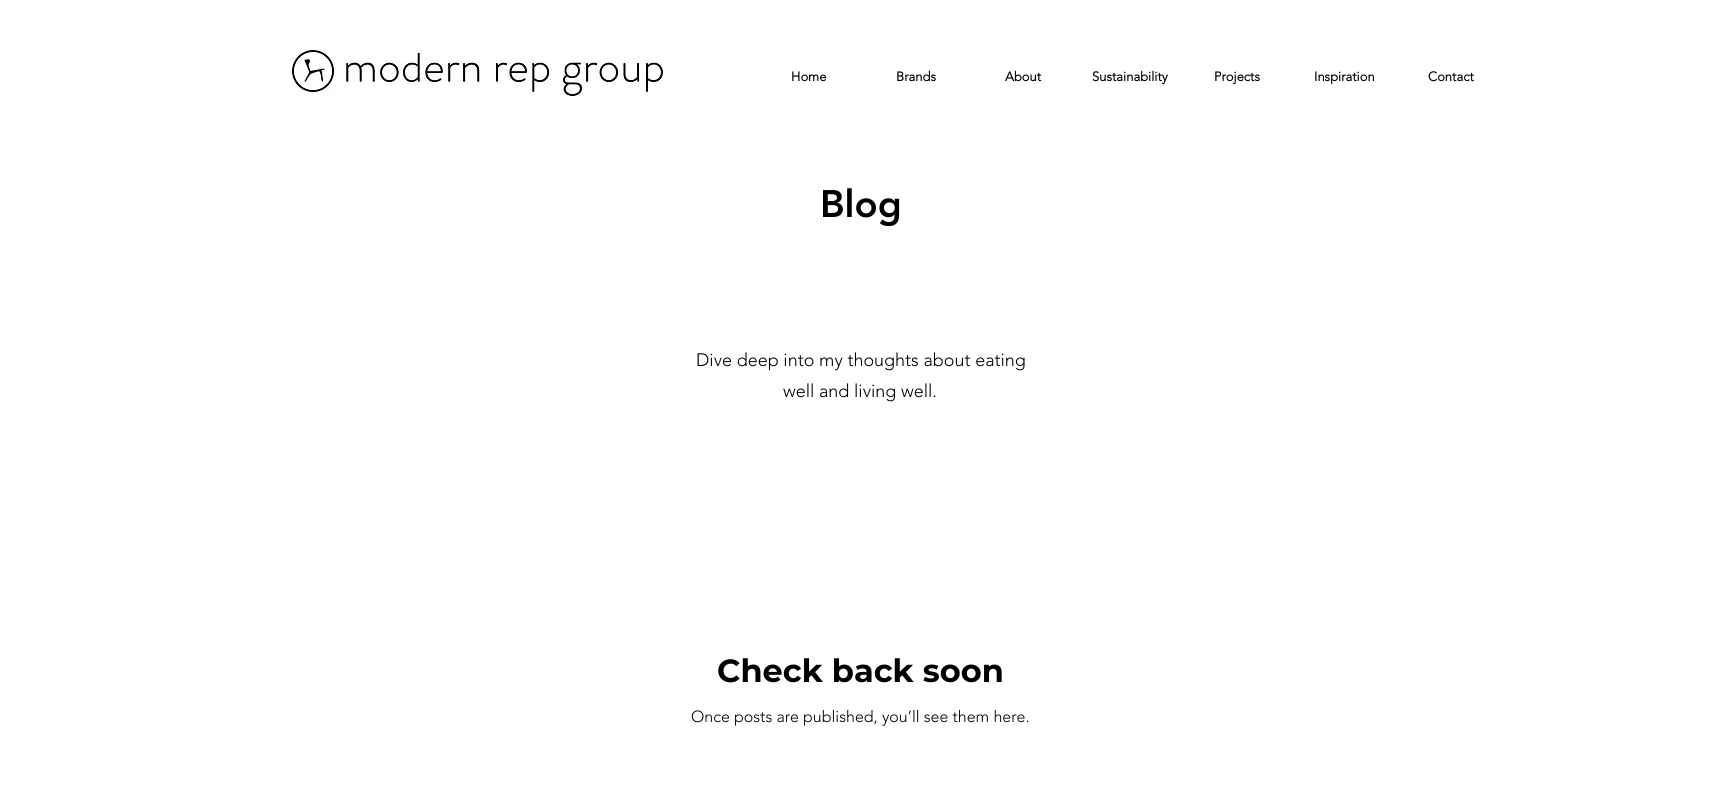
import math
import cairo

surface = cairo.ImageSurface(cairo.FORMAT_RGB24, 1721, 803)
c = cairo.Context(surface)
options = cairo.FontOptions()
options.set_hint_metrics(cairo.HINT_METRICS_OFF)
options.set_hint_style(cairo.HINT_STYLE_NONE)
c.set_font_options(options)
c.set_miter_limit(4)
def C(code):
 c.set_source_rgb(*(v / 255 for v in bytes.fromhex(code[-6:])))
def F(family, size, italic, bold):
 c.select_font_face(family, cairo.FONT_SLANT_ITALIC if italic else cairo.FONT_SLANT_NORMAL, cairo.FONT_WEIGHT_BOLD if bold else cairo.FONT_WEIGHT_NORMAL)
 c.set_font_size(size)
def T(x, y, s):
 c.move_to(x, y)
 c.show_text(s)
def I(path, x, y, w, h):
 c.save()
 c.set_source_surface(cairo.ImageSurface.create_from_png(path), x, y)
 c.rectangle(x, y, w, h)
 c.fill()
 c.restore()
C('ffffff')
c.paint()
I('1.png',291,49,372,48)
F('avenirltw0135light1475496',13,0,1)
C('000000')
T(791,81,'Home')
T(896,81,'Brands')
T(1005,81,'About')
T(1092,81,'Sustainability')
T(1214,81,'Projects')
T(1314,81,'Inspiration')
T(1428,81,'Contact')
F('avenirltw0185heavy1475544 Black',38,0,0)
T(820,217,'Blog')
F('avenirltw0135light1475496 Light',18,0,0)
T(696,366,'Dive deep into my thoughts about eating')
T(783,397,'well and living well.')
F('Montserrat',32,0,1)
T(717,682,'Check back soon')
F('avenirltw0135light1475496 Light',16,0,0)
T(691,722,'Once posts are published, you’ll see them here.')
surface.write_to_png('o.png')
